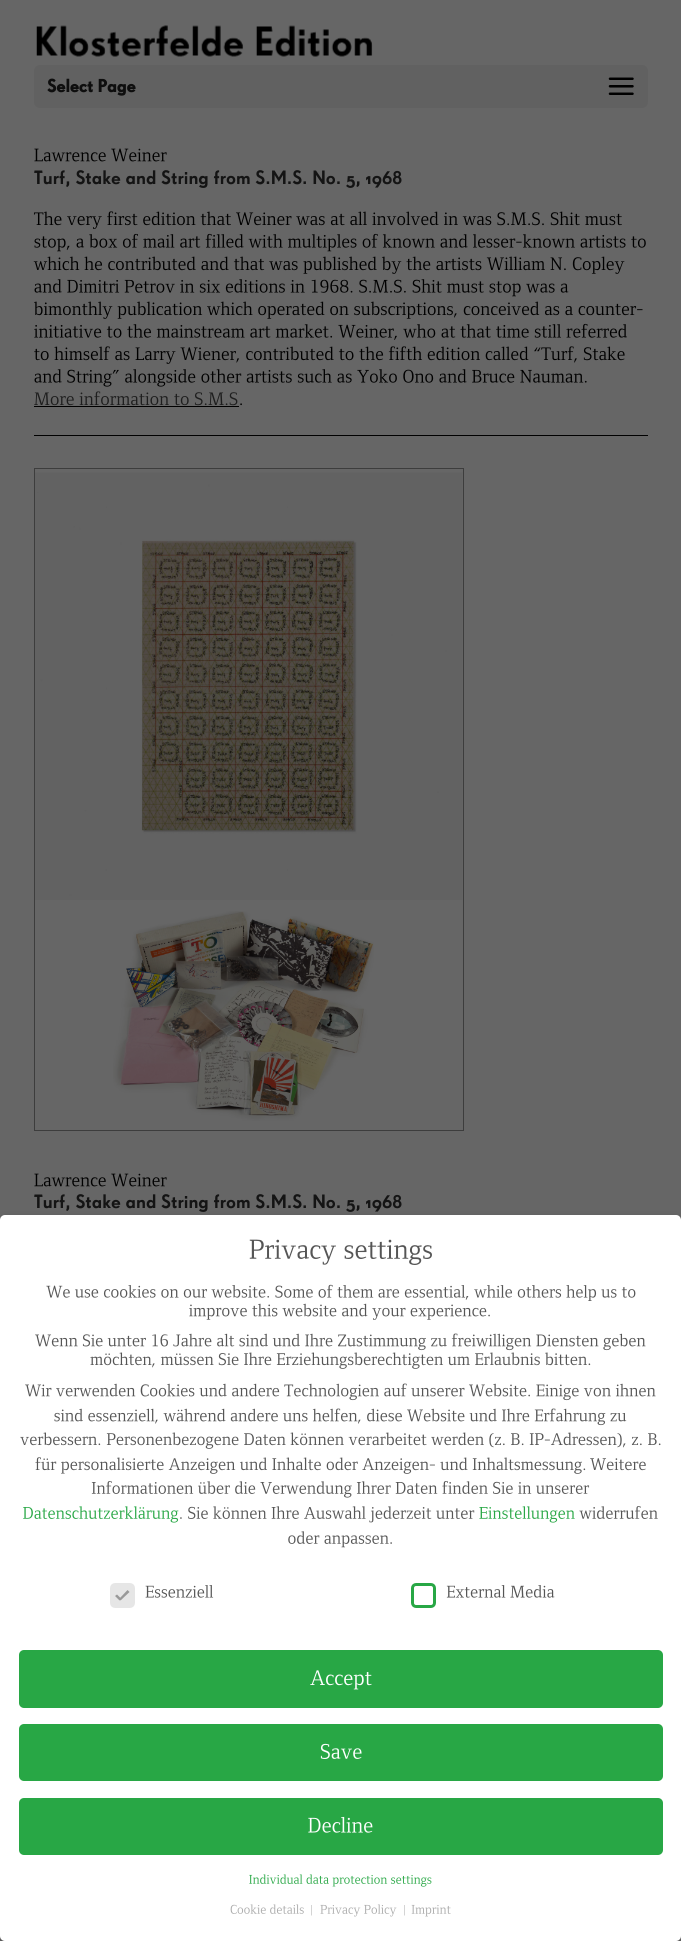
import math
import cairo

surface = cairo.ImageSurface(cairo.FORMAT_RGB24, 681, 1941)
c = cairo.Context(surface)
options = cairo.FontOptions()
options.set_hint_metrics(cairo.HINT_METRICS_OFF)
options.set_hint_style(cairo.HINT_STYLE_NONE)
c.set_font_options(options)
c.set_miter_limit(4)
def C(code):
 c.set_source_rgb(*(v / 255 for v in bytes.fromhex(code[-6:])))
def F(family, size, italic, bold):
 c.select_font_face(family, cairo.FONT_SLANT_ITALIC if italic else cairo.FONT_SLANT_NORMAL, cairo.FONT_WEIGHT_BOLD if bold else cairo.FONT_WEIGHT_NORMAL)
 c.set_font_size(size)
def T(x, y, s):
 c.move_to(x, y)
 c.show_text(s)
def R(x, y, w, h):
 c.rectangle(x, y, w, h)
 c.fill()
def Q(x, y, w, h, r):
 c.new_sub_path()
 for i, (u, v) in enumerate([(x + w - r, y + h - r), (x + r, y + h - r), (x + r, y + r), (x + w - r, y + r)]):
  c.arc(u, v, r, i * math.pi / 2, (i + 1) * math.pi / 2)
 c.close_path()
def S(x, y, w, h, r, blur, alpha):
 c.push_group_with_content(cairo.CONTENT_ALPHA)
 c.set_operator(cairo.OPERATOR_SOURCE)
 for i in range(15, -16, -2):
  e = blur * i / 6
  if min(w, h) + 2 * e > 0:
   c.set_source_rgba(0, 0, 0, alpha * math.erfc((i - 1) / 8.5) / 2)
   Q(x - e, y - e, w + 2 * e, h + 2 * e, max(0, min(r + e + blur * .6, min(w, h) / 2 + e)))
   c.fill()
 c.mask(c.pop_group())
def I(path, x, y, w, h):
 c.save()
 c.set_source_surface(cairo.ImageSurface.create_from_png(path), x, y)
 c.rectangle(x, y, w, h)
 c.fill()
 c.restore()
C('666666')
c.paint()
I('1.png',36,25,337,32)
C('616161')
Q(34,65,614,43,6)
c.fill()
F('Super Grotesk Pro',17.5,0,1)
C('0e0e0e')
T(47,92,'Select Page')
I('2.png',608,77,26,18)
I('3.png',34,148,133,14)
F('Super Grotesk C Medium',18.75,0,0)
C('141414')
T(34,184,'Turf, Stake and String from S.M.S. No. 5, 1968')
C('000000')
R(34,435,614,1)
I('4.png',33,211,589,18)
I('5.png',34,233,612,19)
I('6.png',33,256,592,18)
I('7.png',34,279,535,18)
I('8.png',34,301,609,18)
I('9.png',34,323,593,17)
I('10.png',34,346,591,18)
I('11.png',34,369,553,18)
I('12.png',34,391,204,15)
I('13.png',240,403,2,3)
R(34,406,205,1)
c.rectangle(34.5,468.5,429,662)
C('3d3d3d')
c.set_line_width(1)
c.stroke()
I('14.png',35,472,428,428)
I('15.png',113,911,261,210)
I('3.png',34,1173,133,14)
C('141414')
T(34,1208,'Turf, Stake and String from S.M.S. No. 5, 1968')
C('000000')
S(0,1220,681,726,5,5,.2)
C('ffffff')
Q(0,1215,681,726,5)
c.fill()
I('16.png',249,1239,183,26)
I('17.png',46,1284,590,17)
I('18.png',189,1303,301,17)
I('19.png',35,1333,611,18)
I('20.png',90,1352,501,17)
I('21.png',25,1383,631,18)
I('22.png',54,1408,573,18)
I('23.png',20,1432,81,14)
I('24.png',106,1432,555,17)
I('25.png',35,1457,551,17)
I('26.png',590,1458,56,13)
I('27.png',91,1481,499,17)
I('28.png',23,1506,156,17)
I('29.png',180,1517,2,2)
I('30.png',188,1506,287,17)
I('31.png',479,1506,96,17)
I('32.png',579,1506,79,13)
I('33.png',288,1531,104,17)
C('e6e6e6')
Q(111.5,1584.5,22,22,3.5)
c.fill_preserve()
c.set_line_width(3)
c.stroke()
C('999999')
c.new_path()
c.move_to(127.5,1590)
c.line_to(129.5,1592)
c.line_to(120.5,1600.5)
c.line_to(119,1599)
c.close_path()
c.fill()
c.new_path()
c.move_to(117,1594.5)
c.line_to(121.5,1599)
c.line_to(119.5,1600.5)
c.line_to(115,1596)
c.close_path()
c.fill()
I('34.png',145,1585,69,13)
Q(412.5,1584.5,22,22,3.5)
C('28a745')
c.stroke()
I('35.png',446,1585,109,13)
Q(19,1650,644,58,5)
c.fill()
I('36.png',310,1670,62,20)
Q(19,1724,644,57,5)
c.fill()
I('37.png',320,1743,42,16)
Q(19,1798,644,57,5)
c.fill()
I('38.png',308,1816,65,17)
I('39.png',249,1874,183,13)
I('40.png',230,1904,74,10)
C('aaaaaa')
c.new_path()
c.move_to(311.5,1915.5)
c.line_to(311.5,1905)
c.line_to(312,1905)
c.line_to(312,1915.5)
c.close_path()
c.fill()
I('41.png',320,1904,77,13)
c.new_path()
c.move_to(404,1915.5)
c.line_to(404,1905)
c.line_to(404.5,1905)
c.line_to(404.5,1915.5)
c.close_path()
c.fill()
I('42.png',411,1904,40,13)
surface.write_to_png('o.png')
